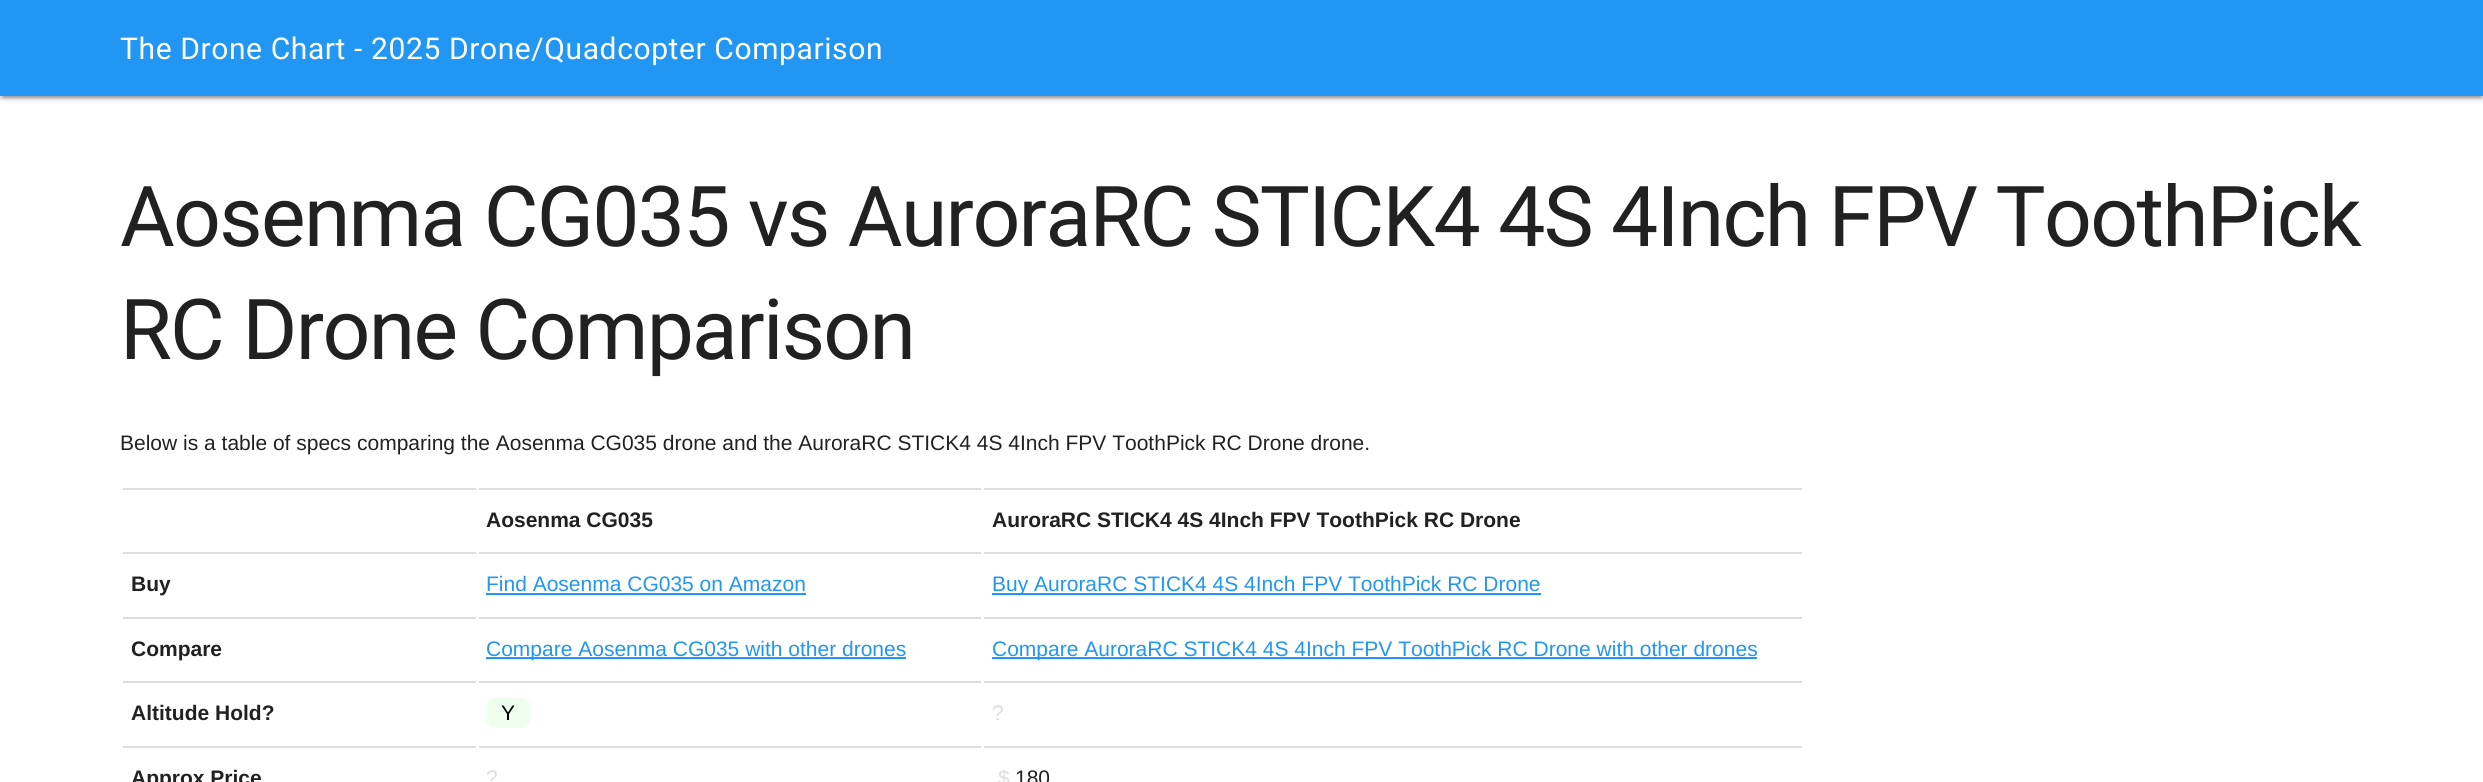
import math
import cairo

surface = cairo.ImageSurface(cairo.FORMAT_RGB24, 2483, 782)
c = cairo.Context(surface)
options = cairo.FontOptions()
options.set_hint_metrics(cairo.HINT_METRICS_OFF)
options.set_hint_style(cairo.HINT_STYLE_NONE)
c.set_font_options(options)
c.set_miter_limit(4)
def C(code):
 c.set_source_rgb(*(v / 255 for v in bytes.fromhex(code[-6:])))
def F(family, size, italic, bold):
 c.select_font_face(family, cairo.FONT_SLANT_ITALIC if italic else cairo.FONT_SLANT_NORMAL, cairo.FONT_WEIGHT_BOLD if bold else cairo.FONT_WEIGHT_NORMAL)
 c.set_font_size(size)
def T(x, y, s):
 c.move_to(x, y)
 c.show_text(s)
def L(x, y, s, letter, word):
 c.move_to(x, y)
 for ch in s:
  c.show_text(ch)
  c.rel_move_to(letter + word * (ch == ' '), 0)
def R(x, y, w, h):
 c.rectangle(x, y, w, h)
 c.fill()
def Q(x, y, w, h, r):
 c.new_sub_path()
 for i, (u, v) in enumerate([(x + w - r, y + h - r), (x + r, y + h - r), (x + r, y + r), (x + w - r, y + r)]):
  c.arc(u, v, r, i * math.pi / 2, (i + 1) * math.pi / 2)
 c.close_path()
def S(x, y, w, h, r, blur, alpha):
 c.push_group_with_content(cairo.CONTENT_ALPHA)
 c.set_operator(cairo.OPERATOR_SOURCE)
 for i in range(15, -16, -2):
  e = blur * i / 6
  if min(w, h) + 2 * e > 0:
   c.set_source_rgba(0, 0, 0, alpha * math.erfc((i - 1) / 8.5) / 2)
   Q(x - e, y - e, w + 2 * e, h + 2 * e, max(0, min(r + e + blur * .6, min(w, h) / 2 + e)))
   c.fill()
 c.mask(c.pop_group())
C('ffffff')
c.paint()
C('000000')
S(0,2,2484,96,0,4,.12)
S(3,8,2478,90,0,1,.2)
S(0,3,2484,96,0,1.5,.14)
C('2196f3')
R(0,0,2483,96)
F('Roboto',30,0,0)
C('ffffff')
L(120,59,'The Drone Chart - 2025 Drone/Quadcopter Comparison',.6,0)
F('Roboto',84,0,0)
C('212121')
L(120,246,'Aosenma CG035 vs AuroraRC STICK4 4S 4Inch FPV ToothPick',-1.68,0)
L(120,359,'RC Drone Comparison',-1.68,0)
F('Liberation Sans',21,0,0)
T(120,450,'Below is a table of specs comparing the Aosenma CG035 drone and the AuroraRC STICK4 4S 4Inch FPV ToothPick RC Drone drone.')
C('dddddd')
R(123,488,353,2)
R(479,488,502,2)
F('Liberation Sans',21,0,1)
C('212121')
T(486,527,'Aosenma CG035')
C('dddddd')
R(984,488,818,2)
C('212121')
T(992,527,'AuroraRC STICK4 4S 4Inch FPV ToothPick RC Drone')
C('dddddd')
R(123,552,353,2)
C('212121')
T(131,591,'Buy')
C('dddddd')
R(479,552,502,2)
F('Liberation Sans',21,0,0)
C('2196f3')
T(486,591,'Find Aosenma CG035 on Amazon')
R(486,593,320,2)
C('dddddd')
R(984,552,818,2)
C('2196f3')
R(992,593,549,2)
T(992,591,'Buy AuroraRC STICK4 4S 4Inch FPV ToothPick RC Drone')
C('dddddd')
R(123,617,353,2)
F('Liberation Sans',21,0,1)
C('212121')
T(131,656,'Compare')
C('dddddd')
R(479,617,502,2)
C('2196f3')
R(486,657,420,2)
F('Liberation Sans',21,0,0)
T(486,656,'Compare Aosenma CG035 with other drones')
C('dddddd')
R(984,617,818,2)
C('2196f3')
R(992,657,765,2)
T(992,656,'Compare AuroraRC STICK4 4S 4Inch FPV ToothPick RC Drone with other drones')
C('dddddd')
R(123,681,353,2)
F('Liberation Sans',21,0,1)
C('212121')
T(131,720,'Altitude Hold?')
C('dddddd')
R(479,681,502,2)
C('eeffee')
Q(486,698,44,30,9)
c.fill()
F('Liberation Sans',21,0,0)
C('000000')
T(501,720,'Y')
C('dddddd')
R(984,681,818,2)
T(992,720,'?')
R(123,746,353,2)
F('Liberation Sans',21,0,1)
C('212121')
T(131,785,'Approx Price')
C('dddddd')
R(479,746,502,2)
F('Liberation Sans',21,0,0)
T(486,785,'?')
R(984,746,818,2)
T(998,785,'$')
C('212121')
T(1015,785,'180')
surface.write_to_png('o.png')
